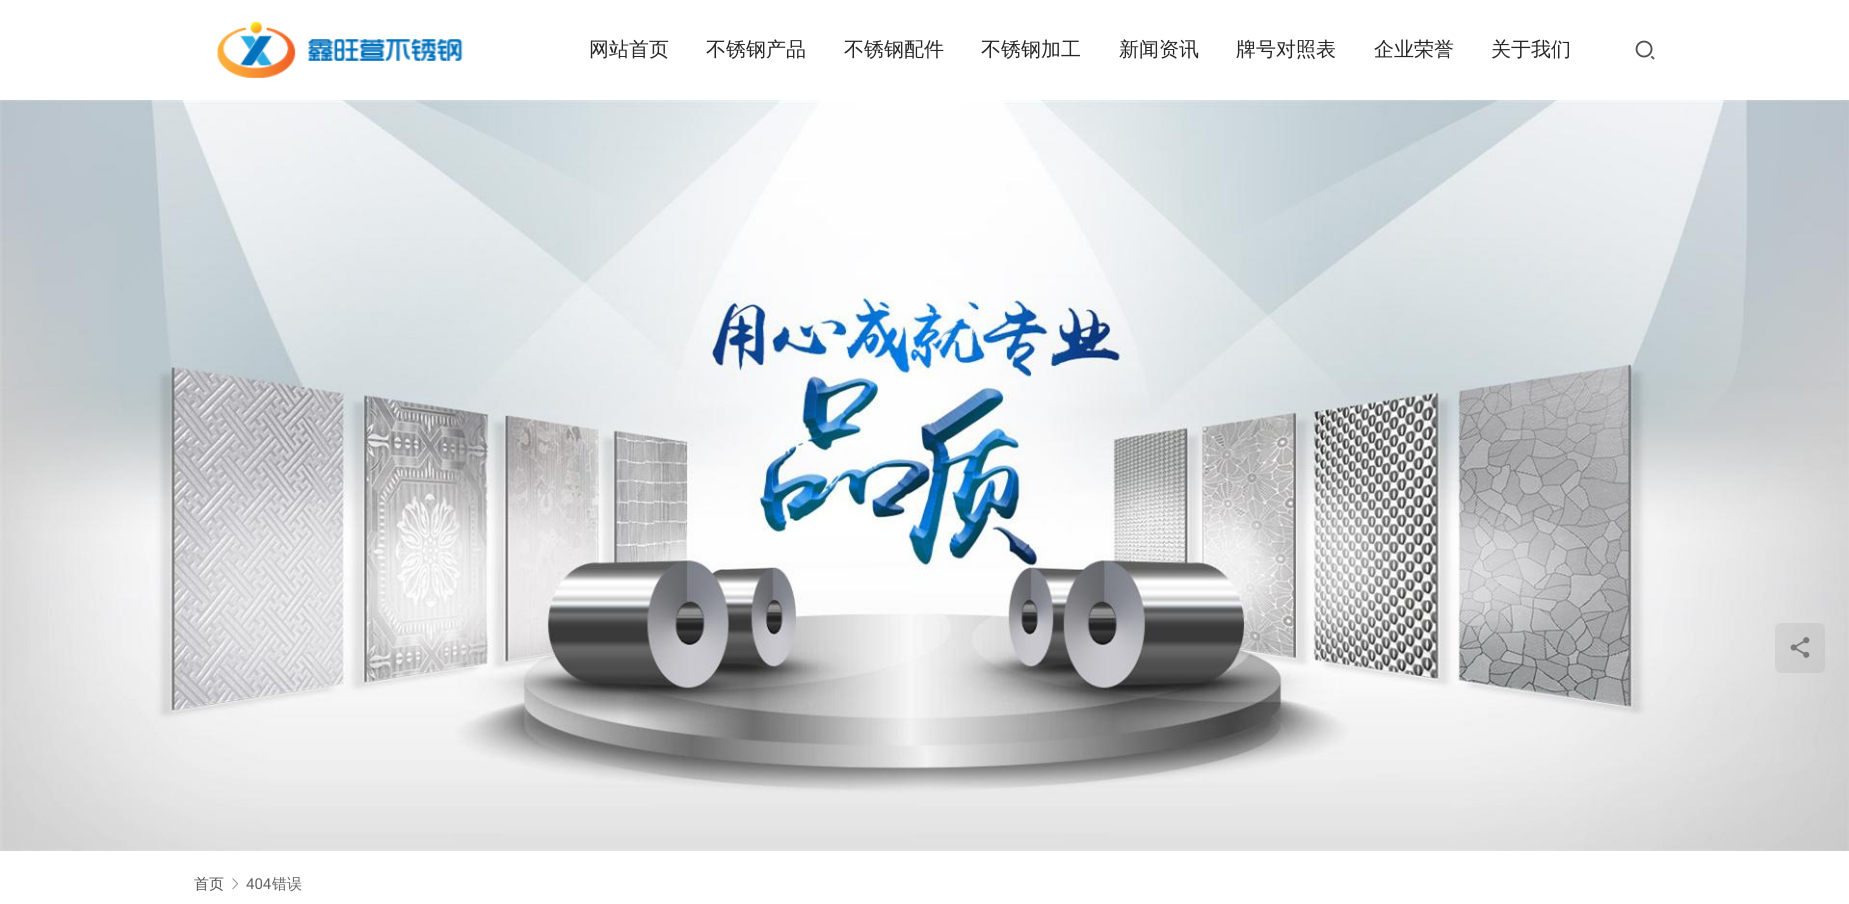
import math
import cairo

surface = cairo.ImageSurface(cairo.FORMAT_RGB24, 1849, 904)
c = cairo.Context(surface)
options = cairo.FontOptions()
options.set_hint_metrics(cairo.HINT_METRICS_OFF)
options.set_hint_style(cairo.HINT_STYLE_NONE)
c.set_font_options(options)
c.set_miter_limit(4)
def C(code):
 c.set_source_rgb(*(v / 255 for v in bytes.fromhex(code[-6:])))
def F(family, size, italic, bold):
 c.select_font_face(family, cairo.FONT_SLANT_ITALIC if italic else cairo.FONT_SLANT_NORMAL, cairo.FONT_WEIGHT_BOLD if bold else cairo.FONT_WEIGHT_NORMAL)
 c.set_font_size(size)
def T(x, y, s):
 c.move_to(x, y)
 c.show_text(s)
def Q(x, y, w, h, r):
 c.new_sub_path()
 for i, (u, v) in enumerate([(x + w - r, y + h - r), (x + r, y + h - r), (x + r, y + r), (x + w - r, y + r)]):
  c.arc(u, v, r, i * math.pi / 2, (i + 1) * math.pi / 2)
 c.close_path()
def I(path, x, y, w, h):
 c.save()
 c.set_source_surface(cairo.ImageSurface.create_from_png(path), x, y)
 c.rectangle(x, y, w, h)
 c.fill()
 c.restore()
C('ffffff')
c.paint()
I('1.png',216,21,247,58)
F('WenQuanYi Zen Hei Medium',20,0,0)
C('262626')
T(589,56,'网站首页')
T(706,56,'不锈钢产品')
T(844,56,'不锈钢配件')
T(981,56,'不锈钢加工')
T(1119,56,'新闻资讯')
T(1236,56,'牌号对照表')
T(1374,56,'企业荣誉')
T(1491,56,'关于我们')
I('2.png',1635,40,20,20)
I('4.png',0,100,1849,751)
c.set_source_rgba(0.149,0.149,0.149,0.07)
Q(1775,623,50,50,6)
c.fill()
I('3.png',1790,637,20,21)
F('WenQuanYi Zen Hei Medium',15,0,0)
C('515151')
T(194,889,'首页')
I('5.png',232,878,6,12)
F('Roboto',15,0,0)
C('636363')
T(246,889,'404')
F('WenQuanYi Zen Hei Medium',15,0,0)
T(272,889,'错误')
surface.write_to_png('o.png')
